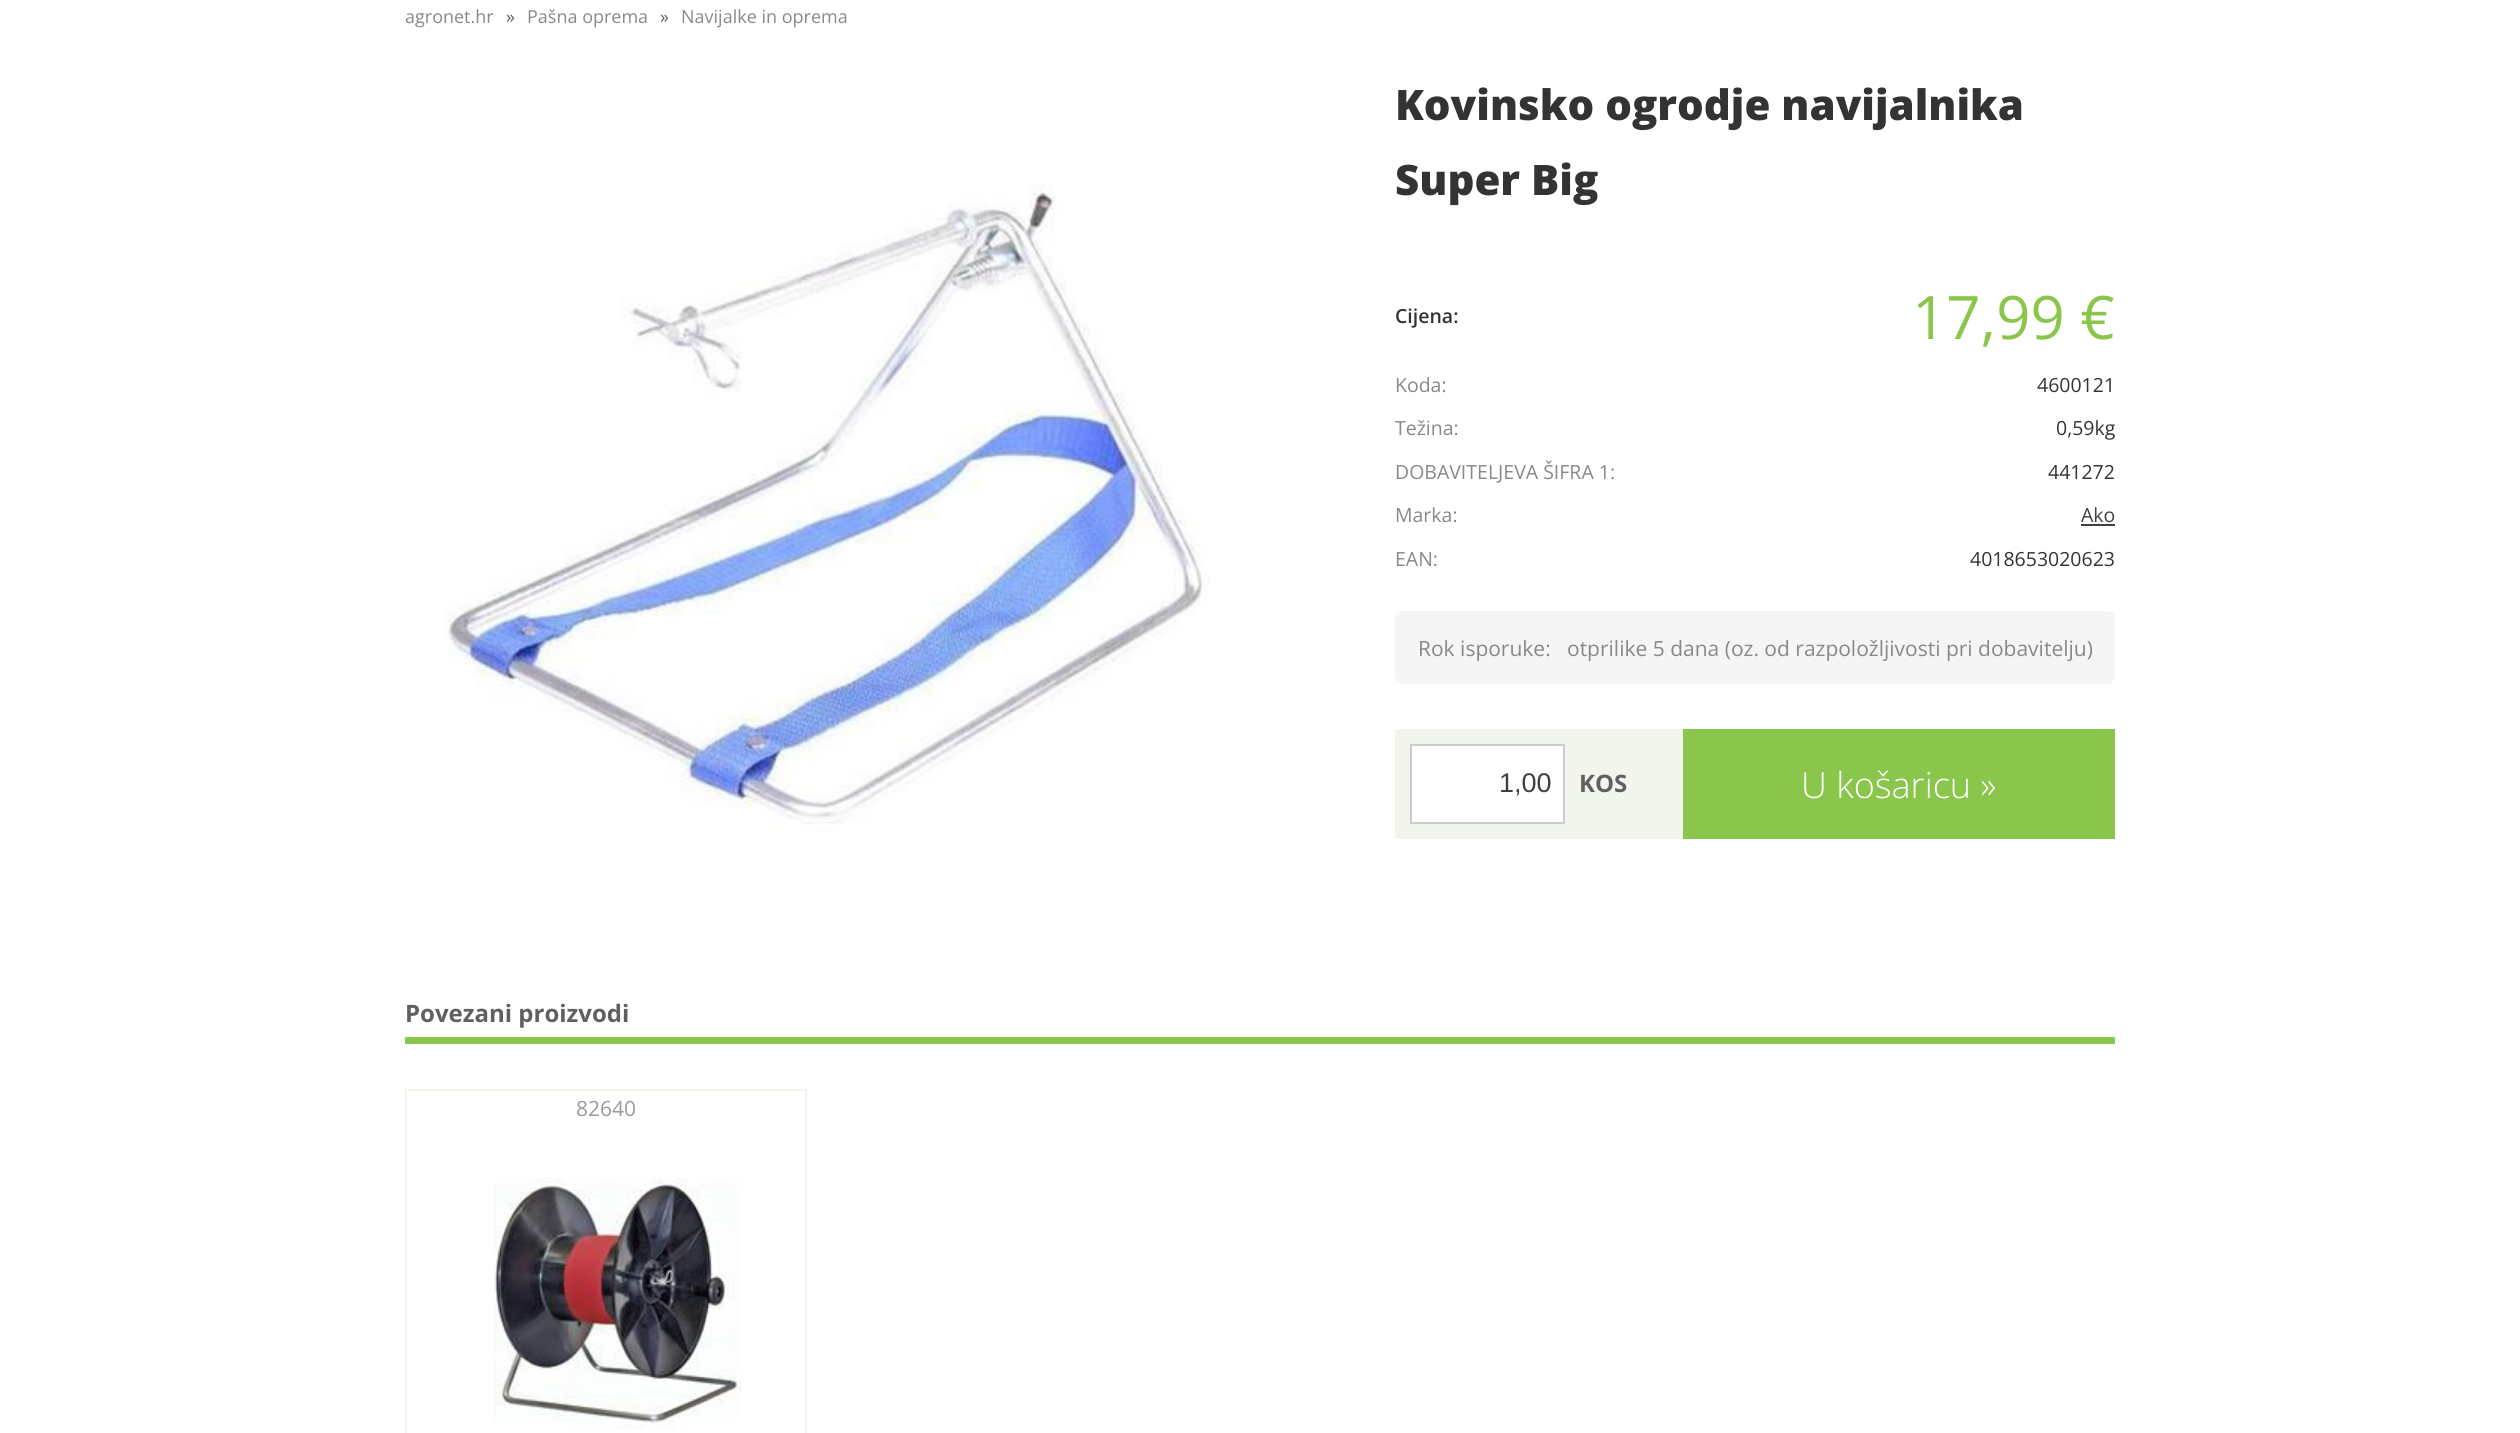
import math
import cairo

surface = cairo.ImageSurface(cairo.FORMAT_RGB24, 2520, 1433)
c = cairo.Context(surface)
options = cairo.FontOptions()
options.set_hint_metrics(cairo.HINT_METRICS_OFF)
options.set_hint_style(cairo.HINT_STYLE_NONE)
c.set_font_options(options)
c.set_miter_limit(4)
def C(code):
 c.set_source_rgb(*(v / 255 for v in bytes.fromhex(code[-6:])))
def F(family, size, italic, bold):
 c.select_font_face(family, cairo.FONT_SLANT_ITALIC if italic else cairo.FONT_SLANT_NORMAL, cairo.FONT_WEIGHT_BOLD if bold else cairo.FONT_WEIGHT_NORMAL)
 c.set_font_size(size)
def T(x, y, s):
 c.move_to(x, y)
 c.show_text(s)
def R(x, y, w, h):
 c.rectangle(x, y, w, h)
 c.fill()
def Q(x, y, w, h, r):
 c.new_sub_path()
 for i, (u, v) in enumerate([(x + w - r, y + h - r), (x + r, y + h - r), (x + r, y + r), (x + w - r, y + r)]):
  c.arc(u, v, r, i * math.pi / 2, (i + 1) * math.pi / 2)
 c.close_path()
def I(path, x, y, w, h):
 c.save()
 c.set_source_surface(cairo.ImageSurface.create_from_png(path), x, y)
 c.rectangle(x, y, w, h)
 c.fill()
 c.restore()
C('ffffff')
c.paint()
F('Open Sans',18,0,0)
C('888888')
T(405,23,'agronet.hr')
C('606060')
T(506,23,'»')
C('888888')
T(527,23,'Pašna oprema')
C('606060')
T(660,23,'»')
C('888888')
T(681,23,'Navijalke in oprema')
F('Open Sans ExtraBold',42,0,0)
C('333333')
T(1395,120,'Kovinsko ogrodje navijalnika')
T(1395,195,'Super Big')
I('1.png',444,184,765,647)
F('Open Sans SemiBold',19.5,0,0)
T(1395,323,'Cijena:')
F('Open Sans',60,0,0)
C('8ac64b')
T(1912,339,'17,99 €')
F('Open Sans',19.5,0,0)
C('888888')
T(1395,392,'Koda:')
C('333333')
T(2037,392,'4600121')
C('888888')
T(1395,435,'Težina:')
C('333333')
T(2056,435,'0,59kg')
C('888888')
T(1395,479,'DOBAVITELJEVA ŠIFRA 1:')
C('333333')
T(2048,479,'441272')
C('888888')
T(1395,522,'Marka:')
C('404040')
T(2081,522,'Ako')
R(2081,524,34,2)
C('888888')
T(1395,566,'EAN:')
C('333333')
T(1970,566,'4018653020623')
C('f5f5f5')
Q(1395,611,720,73,8)
c.fill()
F('Open Sans',21,0,0)
C('888888')
T(1418,656,'Rok isporuke:')
T(1567,656,'otprilike 5 dana (oz. od razpoložljivosti pri dobavitelju)')
C('f1f5eb')
R(1395,729,288,110)
C('ffffff')
c.rectangle(1411,745,153,78)
c.fill_preserve()
C('cccccc')
c.stroke()
F('Liberation Sans',27,0,0)
C('404040')
T(1499,792,'1,00')
F('Open Sans',24,0,1)
C('606060')
T(1579,792,'KOS')
C('8ac64b')
R(1683,729,432,110)
F('Open Sans Light',36,0,0)
C('ffffff')
T(1801,798,'U košaricu »')
C('8ac64b')
R(405,1037,1710,7)
F('Open Sans',24,0,1)
C('606060')
T(405,1022,'Povezani proizvodi')
c.rectangle(406,1090,400,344)
C('f1f5eb')
c.stroke()
F('Open Sans',21,0,0)
C('9a9a9a')
T(576,1116,'82640')
I('2.png',494,1177,247,253)
surface.write_to_png('o.png')
